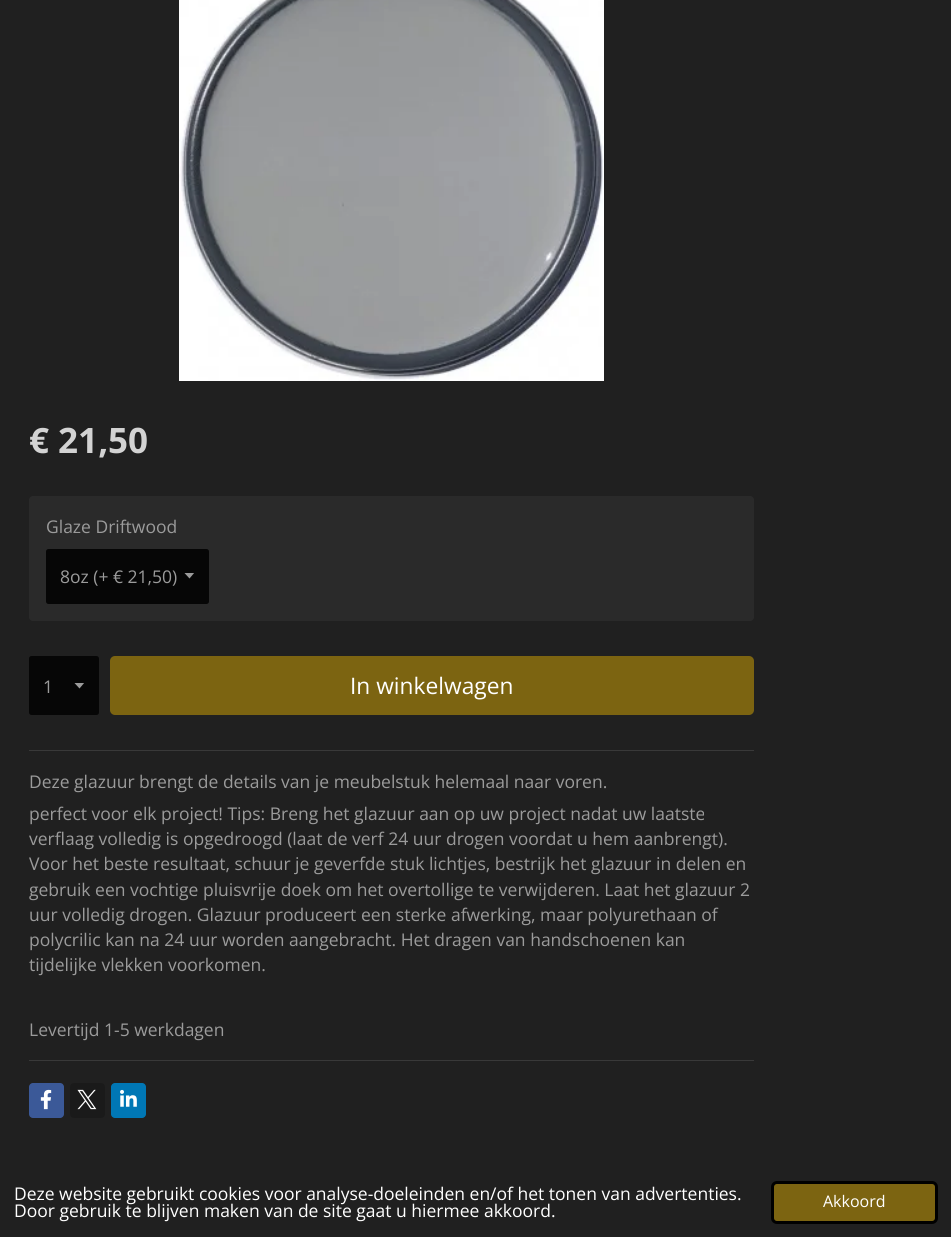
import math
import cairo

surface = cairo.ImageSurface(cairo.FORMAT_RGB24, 951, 1237)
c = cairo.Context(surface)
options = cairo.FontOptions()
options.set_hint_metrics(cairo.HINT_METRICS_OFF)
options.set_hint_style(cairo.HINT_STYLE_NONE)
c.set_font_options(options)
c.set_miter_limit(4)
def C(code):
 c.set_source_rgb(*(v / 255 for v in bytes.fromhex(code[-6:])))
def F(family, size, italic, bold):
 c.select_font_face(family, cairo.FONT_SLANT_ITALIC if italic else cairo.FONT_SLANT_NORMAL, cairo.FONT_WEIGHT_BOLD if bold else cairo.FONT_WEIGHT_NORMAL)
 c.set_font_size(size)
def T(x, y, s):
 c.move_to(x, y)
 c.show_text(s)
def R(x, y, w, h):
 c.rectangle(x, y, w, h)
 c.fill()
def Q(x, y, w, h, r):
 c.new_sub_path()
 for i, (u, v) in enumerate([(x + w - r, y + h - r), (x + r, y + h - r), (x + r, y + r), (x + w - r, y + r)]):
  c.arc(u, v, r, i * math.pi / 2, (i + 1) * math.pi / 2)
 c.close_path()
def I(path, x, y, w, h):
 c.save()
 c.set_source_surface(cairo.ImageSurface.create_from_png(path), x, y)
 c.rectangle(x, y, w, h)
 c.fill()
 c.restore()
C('202020')
c.paint()
I('1.png',179,0,425,381)
F('Open Sans',35,0,1)
C('d3d3d3')
T(29,453,'€ 21,50')
C('2a2a2a')
Q(29,496,725,125,4)
c.fill()
F('Open Sans',17.5,0,0)
C('9b9b9b')
T(46,533,'Glaze Driftwood')
C('060606')
Q(46,549,163,55,2.5)
c.fill()
c.save()
c.rectangle(184,573,11,6)
c.clip()
C('9b9b9b')
c.new_path()
c.move_to(189.5,578.5)
c.line_to(184,572.5)
c.line_to(194.5,572.5)
c.close_path()
c.fill()
c.restore()
C('9b9b9b')
T(60,583,'8oz (+ € 21,50)')
C('060606')
Q(29,656,70,59,2.5)
c.fill()
c.save()
c.rectangle(74,683,11,6)
c.clip()
C('9b9b9b')
c.new_path()
c.move_to(79.5,688.5)
c.line_to(74,682.5)
c.line_to(84.5,682.5)
c.close_path()
c.fill()
c.restore()
C('9b9b9b')
T(43,693,'1')
C('7c6411')
Q(110,656,644,59,5)
c.fill()
F('Open Sans',22.75,0,0)
C('ffffff')
T(350,694,'In winkelwagen')
C('393939')
R(29,750,725,1)
F('Open Sans',17.5,0,0)
C('9b9b9b')
T(29,788,'Deze glazuur brengt de details van je meubelstuk helemaal naar voren.')
T(29,820,'perfect voor elk project! Tips: Breng het glazuur aan op uw project nadat uw laatste')
T(29,845,'verflaag volledig is opgedroogd (laat de verf 24 uur drogen voordat u hem aanbrengt).')
T(29,870,'Voor het beste resultaat, schuur je geverfde stuk lichtjes, bestrijk het glazuur in delen en')
T(29,896,'gebruik een vochtige pluisvrije doek om het overtollige te verwijderen. Laat het glazuur 2')
T(29,921,'uur volledig drogen. Glazuur produceert een sterke afwerking, maar polyurethaan of')
T(29,946,'polycrilic kan na 24 uur worden aangebracht. Het dragen van handschoenen kan')
T(29,971,'tijdelijke vlekken voorkomen.')
T(29,1036,'Levertijd 1-5 werkdagen')
C('393939')
R(29,1060,725,1)
C('3b5998')
Q(29,1083,35,35,4)
c.fill()
I('2.png',40,1089,12,21)
C('1a1a1a')
Q(70,1083,35,35,4)
c.fill()
I('3.png',77,1089,20,21)
C('0077b5')
Q(111,1083,35,35,4)
c.fill()
I('4.png',120,1089,17,18)
C('ffffff')
T(14,1200,'Deze website gebruikt cookies voor analyse-doeleinden en/of het tonen van advertenties.')
T(14,1217,'Door gebruik te blijven maken van de site gaat u hiermee akkoord.')
C('7c6411')
Q(772.5,1182.5,164,40,4.5)
c.fill_preserve()
C('000000')
c.set_line_width(3)
c.stroke()
F('Open Sans',16,0,0)
C('ffffff')
T(823,1207,'Akkoord')
surface.write_to_png('o.png')
